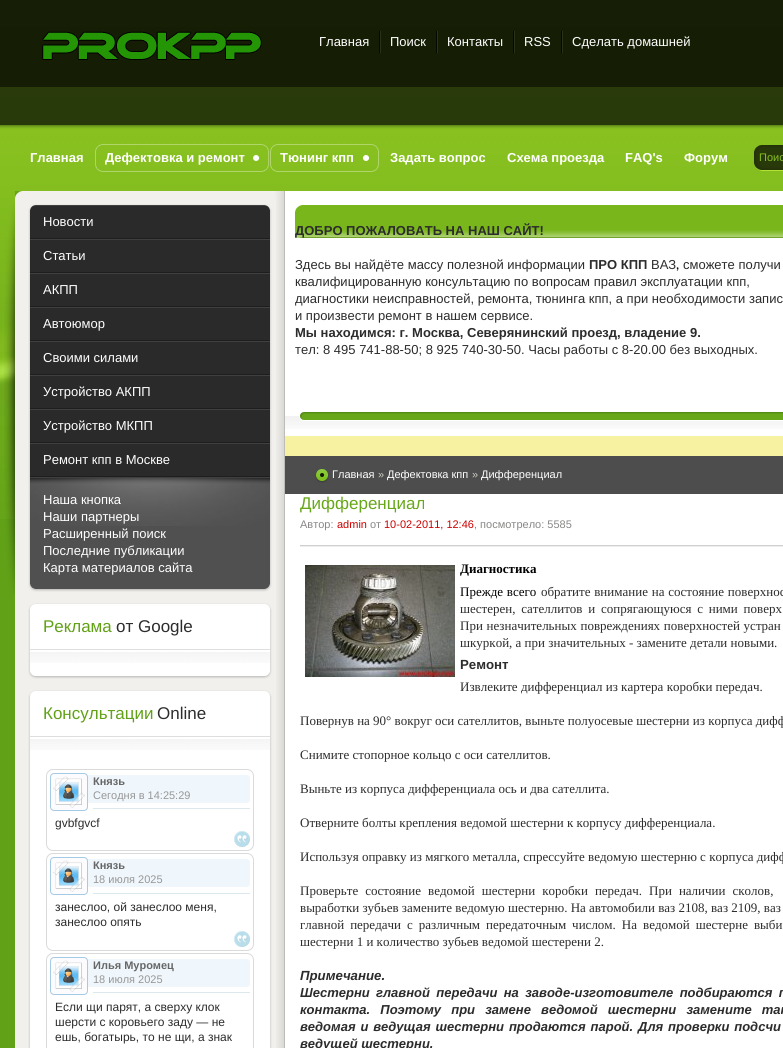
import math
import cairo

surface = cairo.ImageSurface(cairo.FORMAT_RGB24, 783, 1048)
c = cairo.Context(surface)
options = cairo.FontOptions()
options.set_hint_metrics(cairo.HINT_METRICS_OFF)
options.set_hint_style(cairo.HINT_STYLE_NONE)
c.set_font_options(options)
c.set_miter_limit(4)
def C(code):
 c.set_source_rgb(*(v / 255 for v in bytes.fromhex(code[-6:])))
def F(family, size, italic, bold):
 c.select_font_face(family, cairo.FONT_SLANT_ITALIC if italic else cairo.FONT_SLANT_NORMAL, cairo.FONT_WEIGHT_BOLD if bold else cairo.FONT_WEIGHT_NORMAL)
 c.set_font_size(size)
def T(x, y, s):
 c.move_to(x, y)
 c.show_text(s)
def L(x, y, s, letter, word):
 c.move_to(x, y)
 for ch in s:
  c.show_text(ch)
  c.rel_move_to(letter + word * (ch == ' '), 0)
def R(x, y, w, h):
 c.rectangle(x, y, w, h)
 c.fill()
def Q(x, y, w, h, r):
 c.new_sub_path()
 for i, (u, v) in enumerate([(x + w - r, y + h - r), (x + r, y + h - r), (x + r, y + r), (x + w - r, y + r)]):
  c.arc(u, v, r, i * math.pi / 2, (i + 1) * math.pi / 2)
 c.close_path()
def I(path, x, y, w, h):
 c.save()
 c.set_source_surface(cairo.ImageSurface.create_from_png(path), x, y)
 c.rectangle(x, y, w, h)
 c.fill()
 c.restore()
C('61a117')
c.paint()
I('1.png',0,0,783,265)
I('2.png',0,265,15,254)
I('3.png',0,125,783,4)
c.set_source_rgba(0,0,0,0.85)
R(0,0,783,87)
I('4.png',42,31,220,29)
F('Liberation Sans',13,0,0)
C('ffffff')
T(319,46,'Главная')
I('5.png',379,31,2,22)
T(390,46,'Поиск')
I('6.png',436,31,2,22)
T(447,46,'Контакты')
I('7.png',513,31,2,22)
T(524,46,'RSS')
I('7.png',561,31,2,22)
T(572,46,'Сделать домашней')
c.set_source_rgba(0,0,0,0.7)
R(0,87,783,38)
F('Liberation Sans',13,0,1)
C('ffffff')
T(30,162,'Главная')
I('8.png',95,144,158,28)
I('9.png',253,144,16,28)
T(105,162,'Дефектовка и ремонт')
I('10.png',270,144,93,28)
I('11.png',363,144,16,28)
T(280,162,'Тюнинг кпп')
T(390,162,'Задать вопрос')
T(507,162,'Схема проезда')
T(625,162,'FAQ\'s')
T(684,162,'Форум')
I('12.png',754,145,29,26)
F('Liberation Sans',11,0,0)
C('85bf1f')
T(759,161,'Поис')
I('13.png',4,203,11,392)
I('14.png',15,191,270,8)
C('f1f0ed')
R(15,199,261,849)
I('15.png',276,199,9,849)
C('ffffff')
R(285,191,498,857)
C('2a2a2a')
R(30,206,240,270)
I('16.png',28,210,244,374)
C('404040')
R(30,205,240,1)
I('17.png',28,204,244,6)
R(30,477,240,1)
C('1e1e1e')
R(30,238,240,1)
F('Liberation Sans',13,0,0)
C('ffffff')
T(43,226,'Новости')
C('404040')
R(30,239,240,1)
C('1e1e1e')
R(30,272,240,1)
C('ffffff')
T(43,260,'Статьи')
C('404040')
R(30,273,240,1)
C('1e1e1e')
R(30,306,240,1)
C('ffffff')
T(43,294,'АКПП')
C('404040')
R(30,307,240,1)
C('1e1e1e')
R(30,340,240,1)
C('ffffff')
T(43,328,'Автоюмор')
C('404040')
R(30,341,240,1)
C('1e1e1e')
R(30,374,240,1)
C('ffffff')
T(43,362,'Своими силами')
C('404040')
R(30,375,240,1)
C('1e1e1e')
R(30,408,240,1)
C('ffffff')
T(43,396,'Устройство АКПП')
C('404040')
R(30,409,240,1)
C('1e1e1e')
R(30,442,240,1)
C('ffffff')
T(43,430,'Устройство МКПП')
C('404040')
R(30,443,240,1)
C('1e1e1e')
R(30,476,240,1)
C('ffffff')
T(43,464,'Ремонт кпп в Москве')
C('505050')
R(30,526,240,63)
I('18.png',30,478,240,48)
C('ffffff')
T(43,504,'Наша кнопка')
T(43,521,'Наши партнеры')
T(43,538,'Расширенный поиск')
T(43,555,'Последние публикации')
T(43,572,'Карта материалов сайта')
I('19.png',28,584,244,8)
R(30,604,240,72)
I('20.png',28,609,244,62)
I('21.png',28,603,244,6)
C('dedede')
R(30,649,240,1)
F('Liberation Sans',17,0,0)
C('61a117')
T(43,632,'Реклама')
C('2c2c2c')
T(116,632,'от Google')
I('22.png',30,652,240,11)
I('23.png',28,671,244,8)
C('ffffff')
R(30,691,240,357)
I('24.png',28,696,244,352)
C('dedede')
R(30,736,240,1)
C('61a117')
T(43,719,'Консультации')
C('2c2c2c')
T(157,719,'Online')
I('22.png',30,739,240,11)
I('21.png',28,690,244,6)
Q(46.5,769.5,207,81,6.5)
C('dadada')
c.set_line_width(1)
c.stroke()
C('f0f7fc')
Q(50,775,200,28,3)
c.fill()
C('fcfcff')
Q(50.5,773.5,37,37,3.5)
c.fill_preserve()
C('a5cae4')
c.stroke()
I('25.png',53,776,32,32)
F('Liberation Sans',11,0,1)
C('666666')
T(93,785,'Князь')
F('Liberation Sans',11,0,0)
C('969696')
T(93,799,'Сегодня в 14:25:29')
C('dbe8ed')
R(93,808,157,1)
F('Liberation Sans',12,0,0)
C('2c2c2c')
T(55,827,'gvbfgvcf')
I('26.png',234,831,16,16)
Q(46.5,853.5,207,97,6.5)
C('dadada')
c.stroke()
C('f0f7fc')
Q(50,859,200,28,3)
c.fill()
C('fcfcff')
Q(50.5,857.5,37,37,3.5)
c.fill_preserve()
C('a5cae4')
c.stroke()
I('25.png',53,860,32,32)
F('Liberation Sans',11,0,1)
C('666666')
T(93,869,'Князь')
F('Liberation Sans',11,0,0)
C('969696')
T(93,883,'18 июля 2025')
C('dbe8ed')
R(93,893,157,1)
F('Liberation Sans',12,0,0)
C('2c2c2c')
T(55,911,'занеслоо, ой занеслоо меня,')
T(55,926,'занеслоо опять')
I('26.png',234,931,16,16)
Q(46.5,953.5,207,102,6.5)
C('dadada')
c.stroke()
C('f0f7fc')
Q(50,959,200,28,3)
c.fill()
C('fcfcff')
Q(50.5,957.5,37,37,3.5)
c.fill_preserve()
C('a5cae4')
c.stroke()
I('25.png',53,960,32,32)
F('Liberation Sans',11,0,1)
C('666666')
T(93,969,'Илья Муромец')
F('Liberation Sans',11,0,0)
C('969696')
T(93,983,'18 июля 2025')
C('dbe8ed')
R(93,992,157,1)
F('Liberation Sans',12,0,0)
C('2c2c2c')
T(55,1011,'Если щи парят, а сверху клок')
T(55,1026,'шерсти с коровьего заду — не')
T(55,1041,'ешь, богатырь, то не щи, а знак')
I('27.png',285,412,498,17)
I('28.png',295,205,488,33)
F('Liberation Sans',13,0,1)
T(295,235,'ДОБРО ПОЖАЛОВАТЬ НА НАШ САЙТ!')
F('Liberation Sans',13,0,0)
T(295,269,'Здесь вы найдёте массу полезной информации')
F('Liberation Sans',13,0,1)
T(589,269,'ПРО КПП')
F('Liberation Sans',13,0,0)
T(651,269,'ВАЗ')
F('Carlito',15,1,0)
C('000000')
T(676,269,',')
F('Liberation Sans',13,0,0)
C('2c2c2c')
T(683,269,'сможете получи')
T(295,286,'квалифицированную консультацию по вопросам правил эксплуатации кпп,')
T(295,303,'диагностики неисправностей, ремонта, тюнинга кпп, а при необходимости запис')
T(295,320,'и произвести ремонт в нашем сервисе.')
F('Liberation Sans',13,0,1)
T(295,337,'Мы находимся: г. Москва, Северянинский проезд, владение 9.')
F('Liberation Sans',13,0,0)
T(295,354,'тел: 8 495 741-88-50; 8 925 740-30-50. Часы работы с 8-20.00 без выходных.')
C('f7f2a2')
R(285,436,498,20)
C('4d4d4d')
R(285,456,498,38)
I('29.png',315,469,14,14)
F('Liberation Sans',11,0,0)
C('ffffff')
T(332,478,'Главная')
C('cacec2')
T(378,478,'»')
C('ffffff')
T(387,478,'Дефектовка кпп')
C('cacec2')
T(472,478,'»')
C('ffffff')
T(481,478,'Дифференциал')
F('Liberation Sans',17,0,0)
C('68a719')
T(300,509,'Дифференциал')
F('Liberation Sans',11,0,0)
C('888785')
T(300,528,'Автор:')
C('cc0000')
T(337,528,'admin')
C('888785')
T(370,528,'от')
C('cc0000')
T(384,528,'10-02-2011, 12:46')
C('888785')
T(474,528,', посмотрело: 5585')
C('ededed')
R(300,546,483,1)
C('cfcfcf')
R(300,545,483,1)
I('30.png',305,565,150,112)
F('Liberation Serif',13,0,1)
C('000000')
T(460,573,'Диагностика')
F('Liberation Serif',13,0,0)
L(460,596,'Прежде всего',0,.5)
C('2c2c2c')
L(541,596,'обратите внимание на состояние поверхнос',0,.5)
L(460,613,'шестерен, сателлитов и сопрягающуюся с ними поверх',0,2.5)
L(460,630,'При незначительных повреждениях поверхностей устран',0,.5)
T(460,647,'шкуркой, а при значительных - замените детали новыми.')
F('Liberation Sans',13.25,0,1)
T(460,669,'Ремонт')
F('Liberation Serif',13,0,0)
T(460,691,'Извлеките дифференциал из картера коробки передач.')
T(300,725,'Повернув на 90° вокруг оси сателлитов, выньте полуосевые шестерни из корпуса дифф')
T(300,759,'Снимите стопорное кольцо с оси сателлитов.')
T(300,793,'Выньте из корпуса дифференциала ось и два сателлита.')
T(300,827,'Отверните болты крепления ведомой шестерни к корпусу дифференциала.')
T(300,861,'Используя оправку из мягкого металла, спрессуйте ведомую шестерню с корпуса дифф')
L(300,895,'Проверьте состояние ведомой шестерни коробки передач. При наличии сколов,',0,3.75)
T(300,912,'выработки зубьев замените ведомую шестерню. На автомобили ваз 2108, ваз 2109, ваз')
L(300,929,'главной передачи с различным передаточным числом. На ведомой шестерне выби',0,2.75)
T(300,946,'шестерни 1 и количество зубьев ведомой шестерени 2.')
F('Liberation Sans',13.25,1,1)
T(300,980,'Примечание.')
F('Liberation Sans',13,1,1)
L(300,997,'Шестерни главной передачи на заводе-изготовителе подбираются п',0,2.75)
L(300,1014,'контакта. Поэтому при замене ведомой шестерни замените так',0,6.5)
L(300,1031,'ведомая и ведущая шестерни продаются парой. Для проверки подсчи',0,1.25)
T(300,1048,'ведущей шестерни.')
surface.write_to_png('o.png')
